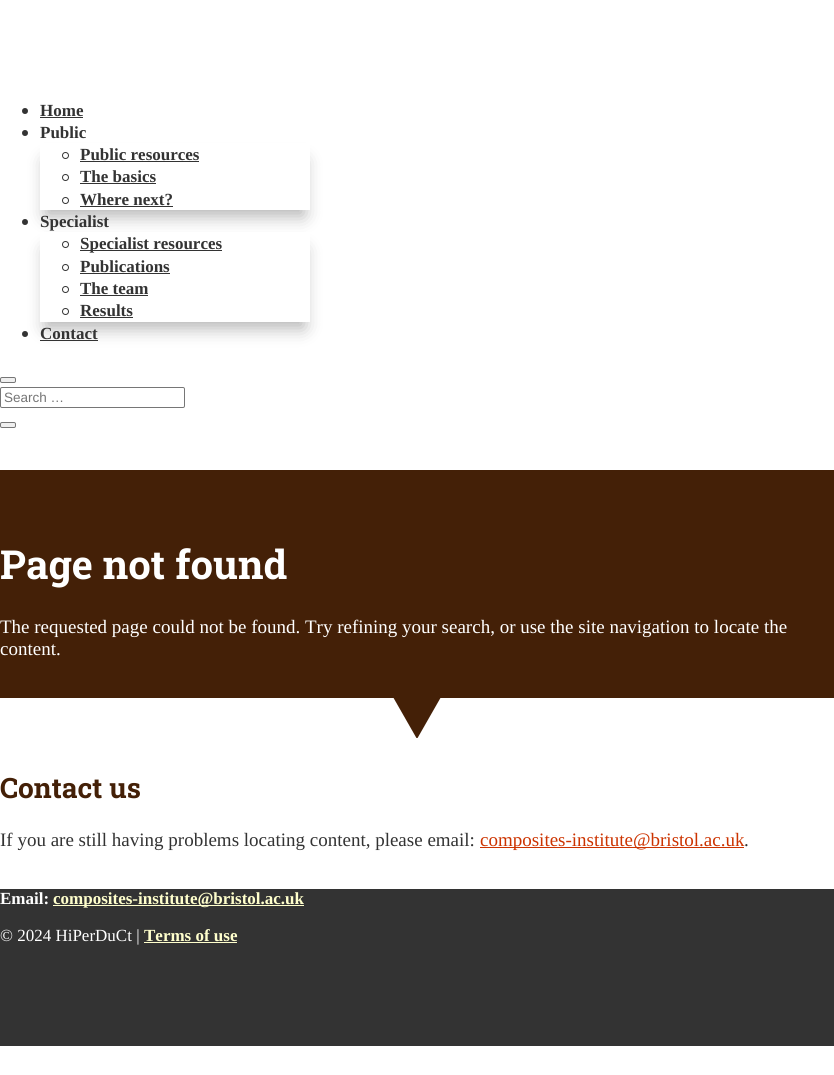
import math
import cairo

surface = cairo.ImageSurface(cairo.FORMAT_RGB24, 834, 1075)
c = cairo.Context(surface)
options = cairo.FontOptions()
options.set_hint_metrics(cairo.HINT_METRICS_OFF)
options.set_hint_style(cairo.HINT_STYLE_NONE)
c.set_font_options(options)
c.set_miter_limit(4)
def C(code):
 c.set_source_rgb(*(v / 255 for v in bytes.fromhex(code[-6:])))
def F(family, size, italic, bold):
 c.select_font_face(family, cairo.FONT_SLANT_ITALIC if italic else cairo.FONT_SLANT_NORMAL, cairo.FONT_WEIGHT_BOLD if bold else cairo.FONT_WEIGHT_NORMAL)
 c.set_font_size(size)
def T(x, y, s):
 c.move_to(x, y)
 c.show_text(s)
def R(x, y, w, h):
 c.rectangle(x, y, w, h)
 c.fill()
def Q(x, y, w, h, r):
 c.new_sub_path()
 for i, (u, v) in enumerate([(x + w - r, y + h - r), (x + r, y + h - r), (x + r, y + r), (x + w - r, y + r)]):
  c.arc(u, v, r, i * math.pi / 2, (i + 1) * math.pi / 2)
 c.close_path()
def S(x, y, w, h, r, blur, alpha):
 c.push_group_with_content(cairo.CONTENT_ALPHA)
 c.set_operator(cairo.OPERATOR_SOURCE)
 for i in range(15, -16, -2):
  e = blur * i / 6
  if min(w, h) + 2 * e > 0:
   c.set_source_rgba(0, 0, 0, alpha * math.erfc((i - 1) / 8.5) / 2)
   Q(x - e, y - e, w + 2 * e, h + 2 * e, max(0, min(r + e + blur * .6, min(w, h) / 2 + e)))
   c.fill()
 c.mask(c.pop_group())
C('ffffff')
c.paint()
C('333333')
c.arc(25,111,3,0,2 * math.pi)
c.fill()
F('Liberation Serif',17,0,1)
T(40,116,'Home')
R(40,117,43,1)
c.save()
c.set_fill_rule(cairo.FILL_RULE_EVEN_ODD)
c.new_path()
c.move_to(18,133)
c.line_to(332,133)
c.line_to(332,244)
c.line_to(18,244)
c.close_path()
c.move_to(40,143)
c.line_to(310,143)
c.line_to(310,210)
c.line_to(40,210)
c.close_path()
c.clip()
C('000000')
S(46,161,258,55,0,9,.3)
c.restore()
c.arc(25,133,3,0,2 * math.pi)
c.fill()
T(40,138,'Public')
c.new_path()
c.arc(65.5,155.5,3,0,2 * math.pi)
c.set_line_width(1)
c.stroke()
T(80,160,'Public resources')
R(80,161,119,1)
c.new_path()
c.arc(65.5,177.5,3,0,2 * math.pi)
c.stroke()
T(80,182,'The basics')
R(80,183,76,1)
c.new_path()
c.arc(65.5,200.5,3,0,2 * math.pi)
c.stroke()
T(80,205,'Where next?')
R(80,206,93,1)
C('000000')
S(46,250,258,78,0,9,.3)
C('333333')
c.arc(25,222,3,0,2 * math.pi)
c.fill()
T(40,227,'Specialist')
C('ffffff')
R(40,232,270,90)
c.new_path()
c.arc(65.5,244.5,3,0,2 * math.pi)
C('333333')
c.stroke()
R(80,250,142,1)
T(80,249,'Specialist resources')
c.new_path()
c.arc(65.5,267.5,3,0,2 * math.pi)
c.stroke()
T(80,272,'Publications')
R(80,273,90,1)
c.new_path()
c.arc(65.5,289.5,3,0,2 * math.pi)
c.stroke()
T(80,294,'The team')
R(80,295,68,1)
c.new_path()
c.arc(65.5,311.5,3,0,2 * math.pi)
c.stroke()
T(80,316,'Results')
R(80,317,53,1)
c.new_path()
c.arc(25,334,3,0,2 * math.pi)
c.fill()
T(40,339,'Contact')
R(40,340,58,1)
C('efefef')
Q(.5,377.5,15,5,1.5)
c.fill_preserve()
C('767676')
c.stroke()
Q(.5,387.5,184,20,1.5)
c.stroke()
F('Liberation Sans',13.5,0,0)
C('757575')
T(4,402,'Search …')
C('efefef')
Q(.5,422.5,15,5,1.5)
c.fill_preserve()
C('767676')
c.stroke()
C('442007')
R(0,470,834,268)
F('Roboto Slab',40,0,1)
C('ffffff')
T(0,579,'Page not found')
F('Liberation Serif',19,0,0)
T(0,633,'The requested page could not be found. Try refining your search, or use the site navigation to locate the')
T(0,655,'content.')
c.save()
c.rectangle(0,698,834,40)
c.clip()
c.new_path()
c.move_to(469,648)
c.line_to(417,739)
c.line_to(365,648)
c.line_to(0,648)
c.line_to(0,739)
c.line_to(834,739)
c.line_to(834,648)
c.close_path()
c.fill()
c.restore()
F('Roboto Slab',28,0,1)
C('442007')
T(0,798,'Contact us')
F('Liberation Serif',19,0,0)
C('333333')
T(0,846,'If you are still having problems locating content, please email:')
C('cc3300')
R(480,847,264,1)
T(480,846,'composites-institute@bristol.ac.uk')
C('333333')
T(744,846,'.')
R(0,889,834,157)
F('Liberation Serif',17,0,1)
C('ffffff')
T(0,904,'Email:')
C('ffffcc')
R(53,905,251,1)
T(53,904,'composites-institute@bristol.ac.uk')
F('Liberation Serif',17,0,0)
C('ffffff')
T(0,941,'© 2024 HiPerDuCt |')
F('Liberation Serif',17,0,1)
C('ffffcc')
T(144,941,'Terms of use')
R(144,942,93,1)
surface.write_to_png('o.png')
